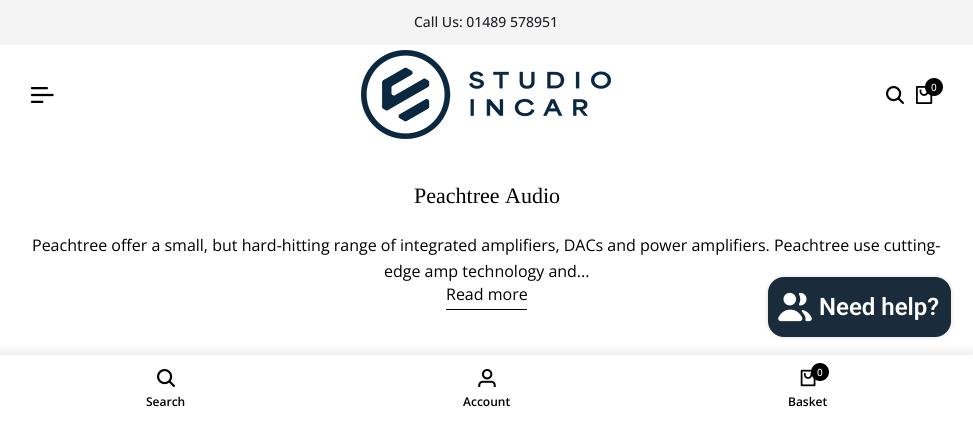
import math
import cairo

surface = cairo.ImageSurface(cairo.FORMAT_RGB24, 973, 422)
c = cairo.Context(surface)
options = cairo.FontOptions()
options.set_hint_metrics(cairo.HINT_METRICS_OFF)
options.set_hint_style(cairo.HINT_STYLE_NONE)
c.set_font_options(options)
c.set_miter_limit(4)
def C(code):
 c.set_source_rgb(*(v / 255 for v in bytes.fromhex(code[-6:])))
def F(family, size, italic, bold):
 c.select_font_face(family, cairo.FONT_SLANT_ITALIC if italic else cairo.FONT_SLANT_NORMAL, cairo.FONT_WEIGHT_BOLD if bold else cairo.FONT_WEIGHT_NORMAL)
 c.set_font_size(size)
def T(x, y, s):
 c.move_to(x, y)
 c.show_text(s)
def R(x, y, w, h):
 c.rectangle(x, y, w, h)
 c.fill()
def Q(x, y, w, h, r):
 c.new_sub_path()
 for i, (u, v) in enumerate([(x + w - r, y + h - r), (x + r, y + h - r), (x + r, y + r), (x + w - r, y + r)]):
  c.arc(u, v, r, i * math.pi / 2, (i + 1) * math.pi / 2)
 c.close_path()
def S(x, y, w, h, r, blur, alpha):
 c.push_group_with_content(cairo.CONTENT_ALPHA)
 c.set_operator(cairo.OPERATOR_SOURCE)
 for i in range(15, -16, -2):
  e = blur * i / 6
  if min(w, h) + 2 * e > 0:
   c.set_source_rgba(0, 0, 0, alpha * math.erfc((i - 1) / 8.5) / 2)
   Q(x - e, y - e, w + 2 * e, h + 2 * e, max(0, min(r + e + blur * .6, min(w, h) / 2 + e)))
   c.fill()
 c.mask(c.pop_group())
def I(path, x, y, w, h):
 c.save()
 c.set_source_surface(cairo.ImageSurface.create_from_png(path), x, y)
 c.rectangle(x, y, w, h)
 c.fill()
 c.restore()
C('ffffff')
c.paint()
C('f4f4f4')
R(0,0,973,45)
F('Open Sans Medium',14,0,0)
C('212328')
T(414,27,'Call Us: 01489 578951')
I('1.png',30,87,24,16)
I('2.png',361,50,250,89)
I('3.png',886,86,18,18)
I('4.png',916,86,17,18)
C('000000')
c.arc(934,87,9,0,2 * math.pi)
c.fill()
F('Open Sans Medium',10,0,0)
C('ffffff')
T(931,91,'0')
F('Liberation Serif',22,0,0)
C('000000')
T(414,203,'Peachtree Audio')
F('Open Sans',16,0,0)
T(32,251,'Peachtree offer a small, but hard-hitting range of integrated amplifiers, DACs and power amplifiers. Peachtree use cutting-')
T(384,277,'edge amp technology and...')
T(446,300,'Read more')
R(446,309,81,1)
C('000000')
S(768,277,183,60,16,2.5,.15)
S(0,351,973,67,0,5,.08)
C('1a2b3c')
Q(768,277,183,60,16)
c.fill()
I('5.png',778,292,34,30)
F('Roboto SemiBold',24,0,0)
C('ffffff')
T(819,315,'Need help?')
R(0,355,973,67)
I('3.png',157,369,18,18)
F('Open Sans SemiBold',12,0,0)
C('000000')
T(146,406,'Search')
I('6.png',478,369,18,18)
T(463,406,'Account')
I('7.png',800,369,16,18)
c.arc(820,372,9,0,2 * math.pi)
c.fill()
F('Open Sans Medium',10,0,0)
C('ffffff')
T(817,376,'0')
F('Open Sans SemiBold',12,0,0)
C('000000')
T(788,406,'Basket')
surface.write_to_png('o.png')
